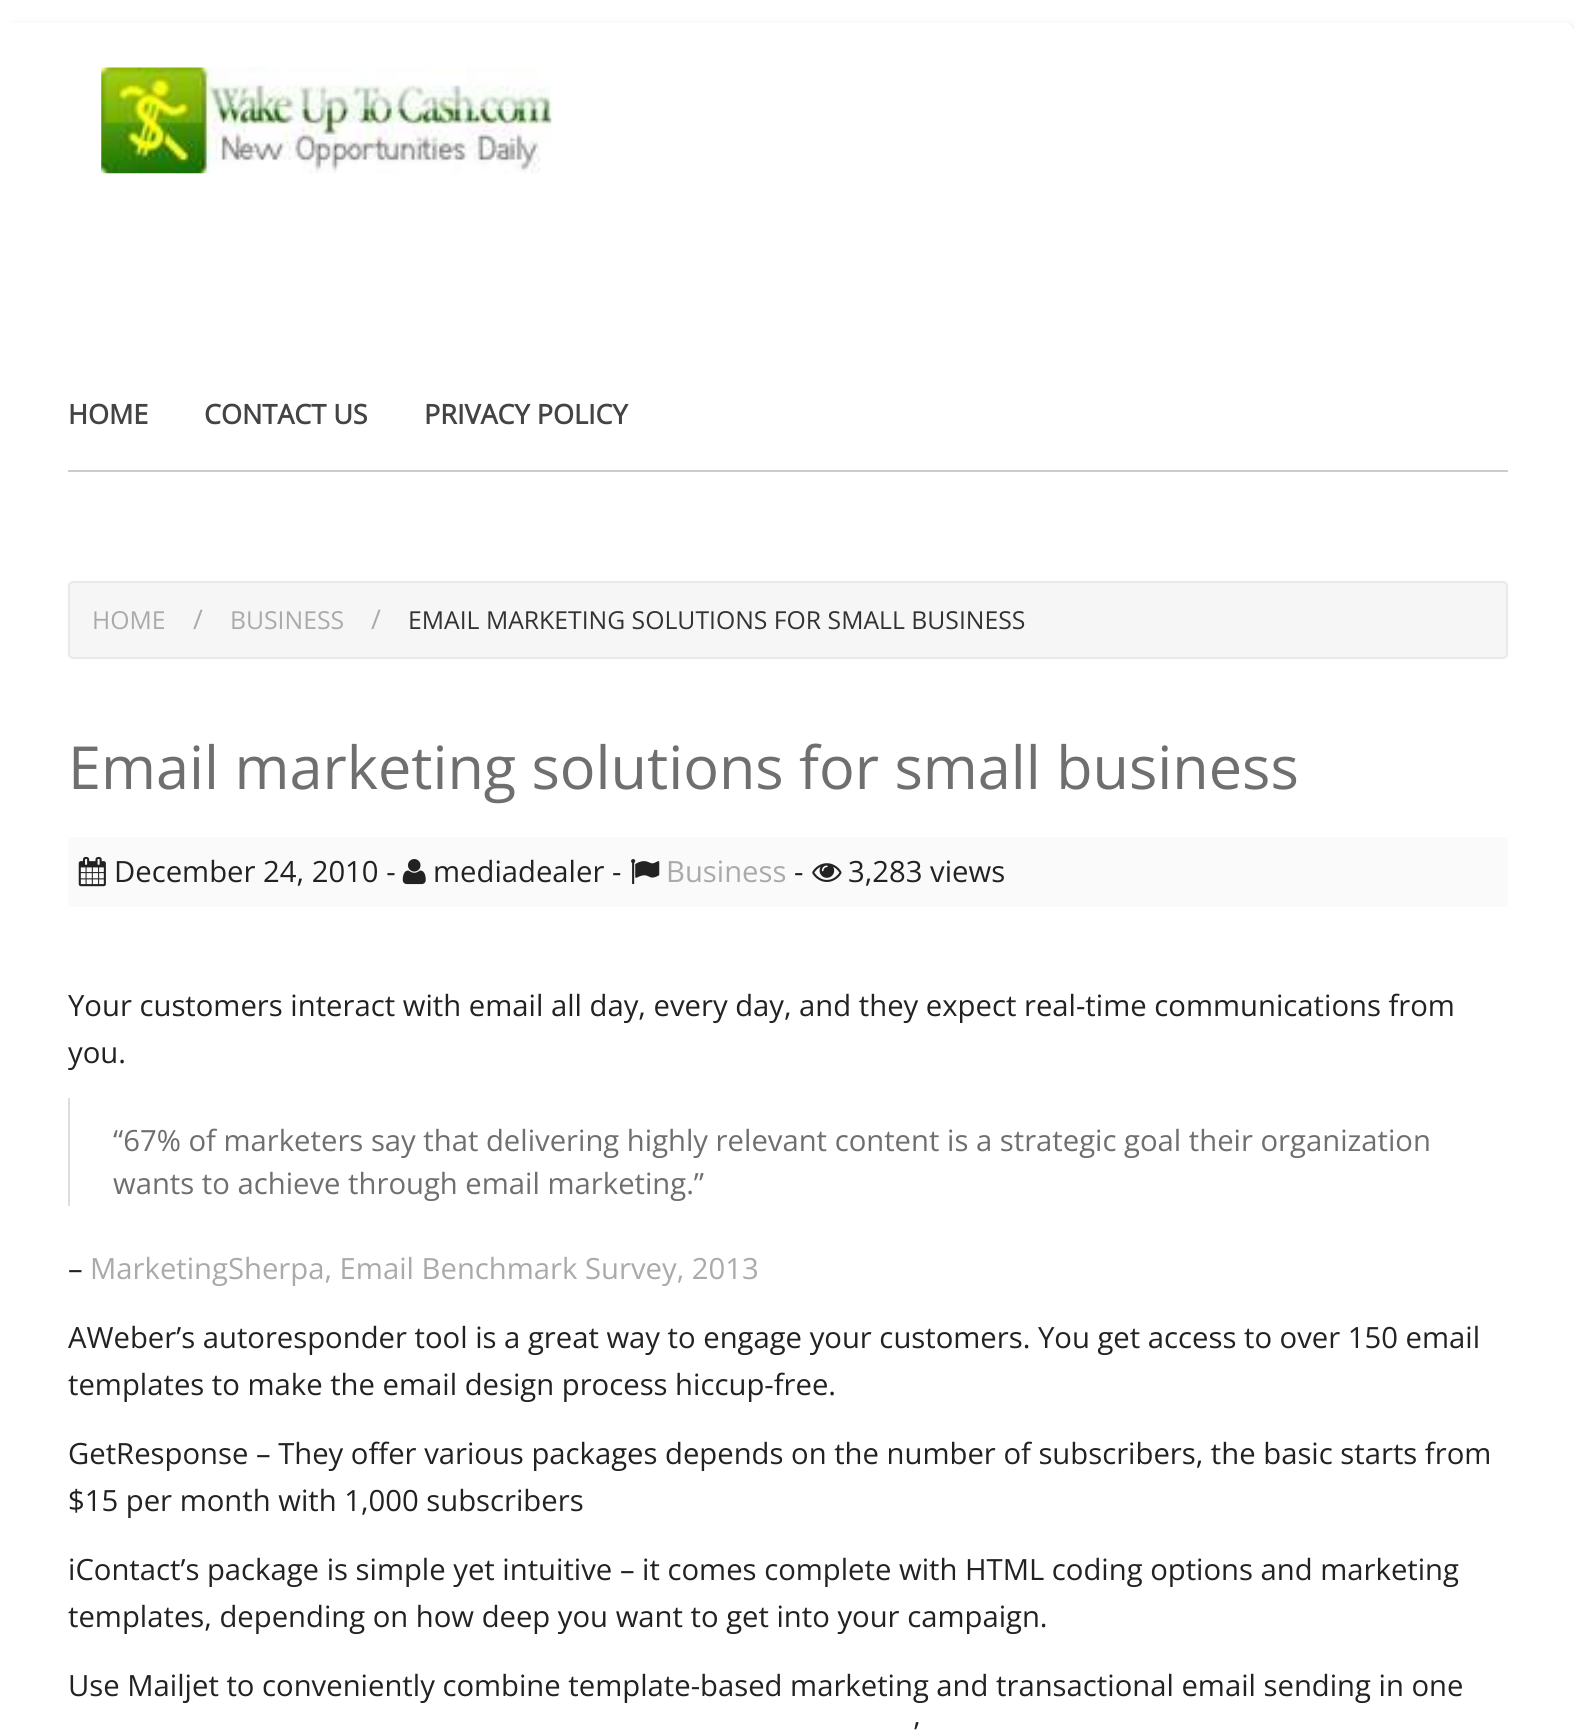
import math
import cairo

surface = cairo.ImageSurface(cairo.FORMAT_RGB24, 1574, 1732)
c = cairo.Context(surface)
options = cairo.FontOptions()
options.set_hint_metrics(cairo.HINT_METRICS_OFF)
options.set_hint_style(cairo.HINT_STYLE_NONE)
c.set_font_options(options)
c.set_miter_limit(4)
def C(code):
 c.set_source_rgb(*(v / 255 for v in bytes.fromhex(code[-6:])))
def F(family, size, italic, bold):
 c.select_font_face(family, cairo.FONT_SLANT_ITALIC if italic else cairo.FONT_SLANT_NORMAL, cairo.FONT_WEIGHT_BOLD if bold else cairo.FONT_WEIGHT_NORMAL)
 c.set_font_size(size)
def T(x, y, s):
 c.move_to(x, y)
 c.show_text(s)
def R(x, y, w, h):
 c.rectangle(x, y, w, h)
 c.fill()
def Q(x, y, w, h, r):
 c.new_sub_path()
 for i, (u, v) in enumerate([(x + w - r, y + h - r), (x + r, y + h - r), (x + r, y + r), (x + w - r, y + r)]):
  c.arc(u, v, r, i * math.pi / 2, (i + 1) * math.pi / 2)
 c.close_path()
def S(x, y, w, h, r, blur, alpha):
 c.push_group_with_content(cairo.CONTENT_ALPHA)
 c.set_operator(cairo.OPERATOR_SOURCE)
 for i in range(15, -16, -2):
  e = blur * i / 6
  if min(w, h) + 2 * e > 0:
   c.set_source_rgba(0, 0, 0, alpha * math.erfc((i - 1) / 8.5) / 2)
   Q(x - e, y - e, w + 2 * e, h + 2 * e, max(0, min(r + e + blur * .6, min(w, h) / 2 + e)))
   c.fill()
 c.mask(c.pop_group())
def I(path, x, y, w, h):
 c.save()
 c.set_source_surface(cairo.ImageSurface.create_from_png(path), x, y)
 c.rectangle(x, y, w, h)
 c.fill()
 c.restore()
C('ffffff')
c.paint()
C('dddddd')
S(5,27,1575,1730,11,4.5,1)
C('ffffff')
Q(0,23,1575,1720,11)
c.fill()
I('1.png',101,67,451,107)
C('cccccc')
R(68,470,1440,2)
F('Open Sans',27,0,1)
C('444444')
T(68,424,'HOME')
T(204,424,'CONTACT US')
T(424,424,'PRIVACY POLICY')
C('f6f6f6')
Q(69,582,1438,76,4)
c.fill_preserve()
C('e9e9e9')
c.stroke()
F('Open Sans',24.75,0,0)
C('aaaaaa')
T(92,629,'HOME')
F('Open Sans',27,0,0)
T(193,629,'/')
F('Open Sans',24.75,0,0)
T(230,629,'BUSINESS')
F('Open Sans',27,0,0)
T(371,629,'/')
F('Open Sans',24.75,0,0)
C('333333')
T(408,629,'EMAIL MARKETING SOLUTIONS FOR SMALL BUSINESS')
F('Open Sans',59.4,0,0)
C('6f6f6f')
T(68,789,'Email marketing solutions for small business')
C('fafafa')
R(68,837,1440,70)
I('2.png',78,856,28,31)
F('Open Sans',29.25,0,0)
C('222222')
T(114,882,'December 24, 2010 -')
I('3.png',402,859,24,26)
T(433,882,'mediadealer -')
I('4.png',631,859,29,26)
C('aaaaaa')
T(666,882,'Business')
C('222222')
T(794,882,'-')
I('5.png',812,863,30,19)
T(848,882,'3,283 views')
T(68,1016,'Your customers interact with email all day, every day, and they expect real-time communications from')
T(68,1063,'you.')
C('dddddd')
R(68,1098,2,108)
C('6f6f6f')
T(113,1151,'“67% of marketers say that delivering highly relevant content is a strategic goal their organization')
T(113,1194,'wants to achieve through email marketing.”')
C('222222')
T(68,1279,'–')
C('aaaaaa')
T(90,1279,'MarketingSherpa, Email Benchmark Survey, 2013')
C('222222')
T(68,1348,'AWeber’s autoresponder tool is a great way to engage your customers. You get access to over 150 email')
T(68,1395,'templates to make the email design process hiccup-free.')
T(68,1464,'GetResponse – They offer various packages depends on the number of subscribers, the basic starts from')
T(68,1511,'$15 per month with 1,000 subscribers')
T(68,1580,'iContact’s package is simple yet intuitive – it comes complete with HTML coding options and marketing')
T(68,1627,'templates, depending on how deep you want to get into your campaign.')
T(68,1696,'Use Mailjet to conveniently combine template-based marketing and transactional email sending in one')
T(914,1743,'’')
surface.write_to_png('o.png')
